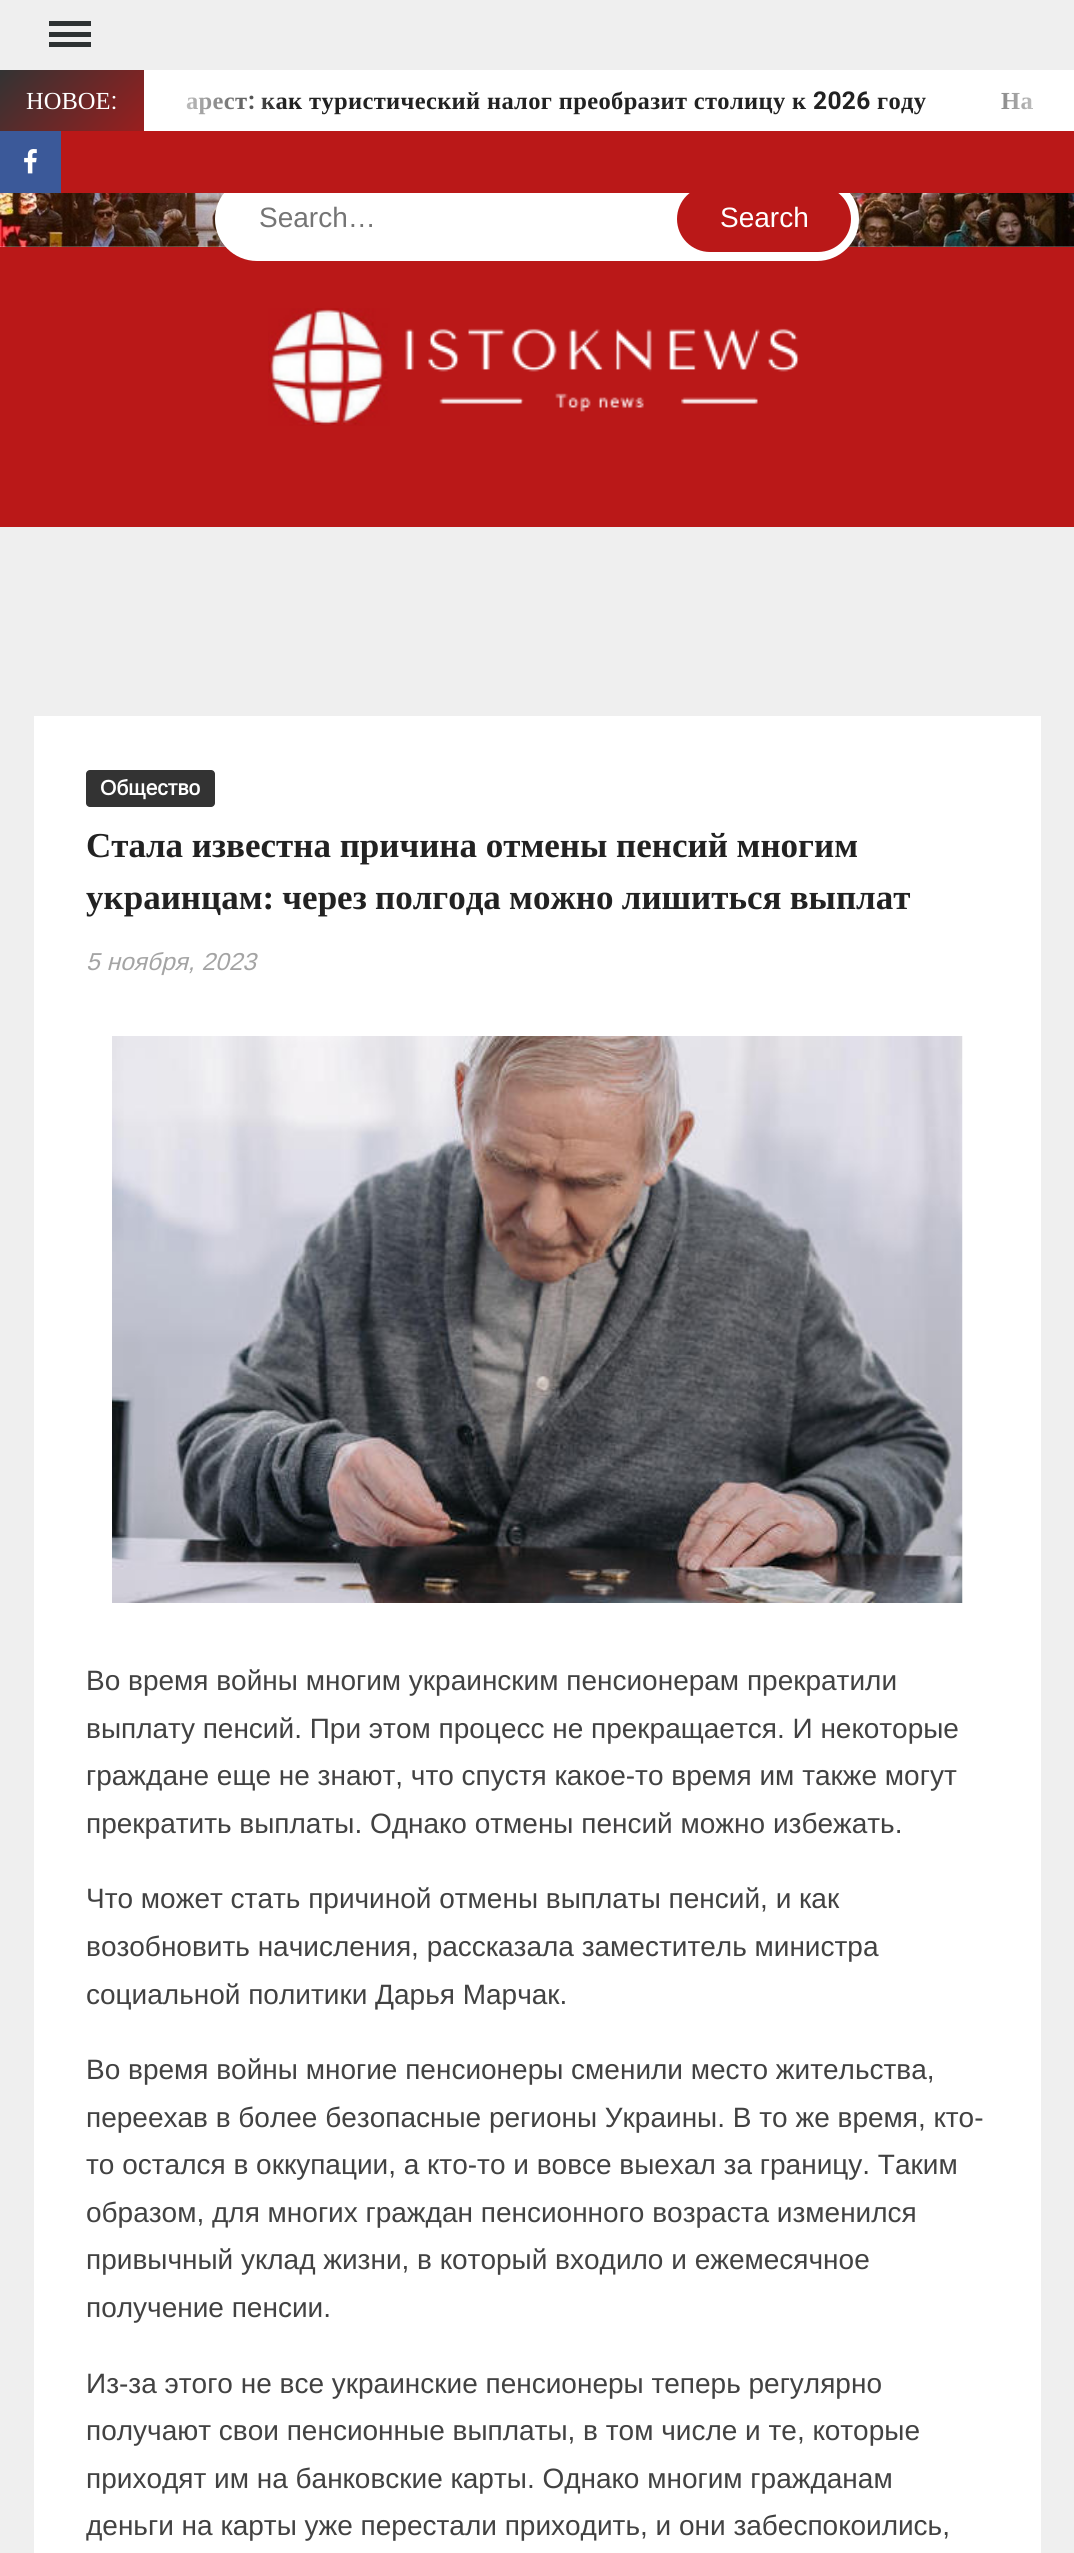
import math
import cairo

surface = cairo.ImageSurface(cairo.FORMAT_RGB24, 1074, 2553)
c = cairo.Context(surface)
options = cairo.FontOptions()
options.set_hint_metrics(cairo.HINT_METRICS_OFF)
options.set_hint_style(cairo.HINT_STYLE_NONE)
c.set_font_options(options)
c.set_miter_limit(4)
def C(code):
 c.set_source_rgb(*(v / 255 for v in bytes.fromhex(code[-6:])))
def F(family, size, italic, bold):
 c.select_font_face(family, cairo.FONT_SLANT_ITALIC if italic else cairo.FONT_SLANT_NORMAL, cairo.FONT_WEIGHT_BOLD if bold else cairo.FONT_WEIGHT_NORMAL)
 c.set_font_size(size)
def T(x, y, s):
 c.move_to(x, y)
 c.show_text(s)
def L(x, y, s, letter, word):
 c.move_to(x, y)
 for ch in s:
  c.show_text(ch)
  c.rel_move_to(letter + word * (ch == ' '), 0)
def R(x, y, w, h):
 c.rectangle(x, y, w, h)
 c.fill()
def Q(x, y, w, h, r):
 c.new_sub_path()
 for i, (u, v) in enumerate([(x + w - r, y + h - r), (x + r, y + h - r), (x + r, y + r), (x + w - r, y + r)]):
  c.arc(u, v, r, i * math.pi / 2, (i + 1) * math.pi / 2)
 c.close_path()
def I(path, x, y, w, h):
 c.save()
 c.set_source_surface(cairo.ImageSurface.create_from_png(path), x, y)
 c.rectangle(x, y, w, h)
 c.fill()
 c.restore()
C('efefef')
c.paint()
C('2e3233')
R(49,32,42,5)
R(49,21,42,5)
R(49,42,42,5)
C('ffffff')
R(145,70,929,61)
gradient = cairo.LinearGradient(492,397,82,-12)
gradient.add_color_stop_rgba(0,0.729,0.094,0.094,1)
gradient.add_color_stop_rgba(.33,0.933,0.933,0.933,1)
gradient.add_color_stop_rgba(.67,0.729,0.094,0.094,1)
gradient.add_color_stop_rgba(1,0.2,0.2,0.2,1)
c.set_source(gradient)
R(0,70,144,61)
F('Liberation Serif',24.5,0,0)
C('ffffff')
T(26,109,'НОВОЕ')
F('Heebo',24.5,0,0)
T(111,109,':')
F('Liberation Serif',24.5,0,1)
C('222222')
L(186,109,'арест',.35,0)
F('Heebo',24.5,0,1)
L(248,109,':',.35,0)
F('Liberation Serif',24.5,0,1)
L(261,109,'как туристический налог преобразит столицу к',.35,0)
gradient = cairo.LinearGradient(144,101,284,101)
gradient.add_color_stop_rgba(0,1,1,1,1)
gradient.add_color_stop_rgba(1,1,1,1,0)
c.set_source(gradient)
R(144,70,137,61)
F('Heebo',24.5,0,1)
C('222222')
L(813,109,'2026',.35,0)
F('Liberation Serif',24.5,0,1)
L(877,109,'году',.35,0)
L(1001,109,'На',.35,0)
gradient = cairo.LinearGradient(935,101,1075,101)
gradient.add_color_stop_rgba(0,1,1,1,0)
gradient.add_color_stop_rgba(1,1,1,1,1)
c.set_source(gradient)
R(1001,92,31,18)
I('2.png',0,193,1074,54)
C('ba1818')
R(0,247,1074,280)
C('ffffff')
Q(215,177,644,84,42)
c.fill()
c.save()
Q(224,186,627,66,33)
c.clip()
C('ba1818')
Q(677,186,175,66,33)
c.fill()
c.restore()
C('ba1818')
R(61,131,1013,62)
C('3b5999')
R(0,131,61,62)
I('1.png',24,149,13,25)
F('Arimo',28,0,0)
C('757575')
T(259,227,'Search…')
C('ffffff')
T(720,227,'Search')
I('3.png',268,308,532,118)
R(34,716,1007,1837)
C('333333')
Q(86,770,129,37,4)
c.fill()
F('Arimo',21,0,1)
C('ffffff')
T(100,795,'Общество')
F('Liberation Serif',35,0,1)
C('222222')
T(86,857,'Стала известна причина отмены пенсий многим')
L(86,909,'украинцам: через полгода можно лишиться выплат',0,-.5)
F('Arimo',24.5,1,0)
C('a4a4a4')
T(86,970,'5 ноября, 2023')
I('4.png',112,1036,851,567)
F('Arimo',28,0,0)
C('424242')
T(86,1690,'Во время войны многим украинским пенсионерам прекратили')
T(86,1738,'выплату пенсий. При этом процесс не прекращается. И некоторые')
T(86,1785,'граждане еще не знают, что спустя какое-то время им также могут')
T(86,1833,'прекратить выплаты. Однако отмены пенсий можно избежать.')
T(86,1908,'Что может стать причиной отмены выплаты пенсий, и как')
T(86,1956,'возобновить начисления, рассказала заместитель министра')
T(86,2004,'социальной политики Дарья Марчак.')
T(86,2079,'Во время войны многие пенсионеры сменили место жительства,')
T(86,2127,'переехав в более безопасные регионы Украины. В то же время, кто-')
T(86,2174,'то остался в оккупации, а кто-то и вовсе выехал за границу. Таким')
T(86,2222,'образом, для многих граждан пенсионного возраста изменился')
T(86,2269,'привычный уклад жизни, в который входило и ежемесячное')
T(86,2317,'получение пенсии.')
T(86,2393,'Из-за этого не все украинские пенсионеры теперь регулярно')
T(86,2440,'получают свои пенсионные выплаты, в том числе и те, которые')
T(86,2488,'приходят им на банковские карты. Однако многим гражданам')
T(86,2535,'деньги на карты уже перестали приходить, и они забеспокоились,')
surface.write_to_png('o.png')
